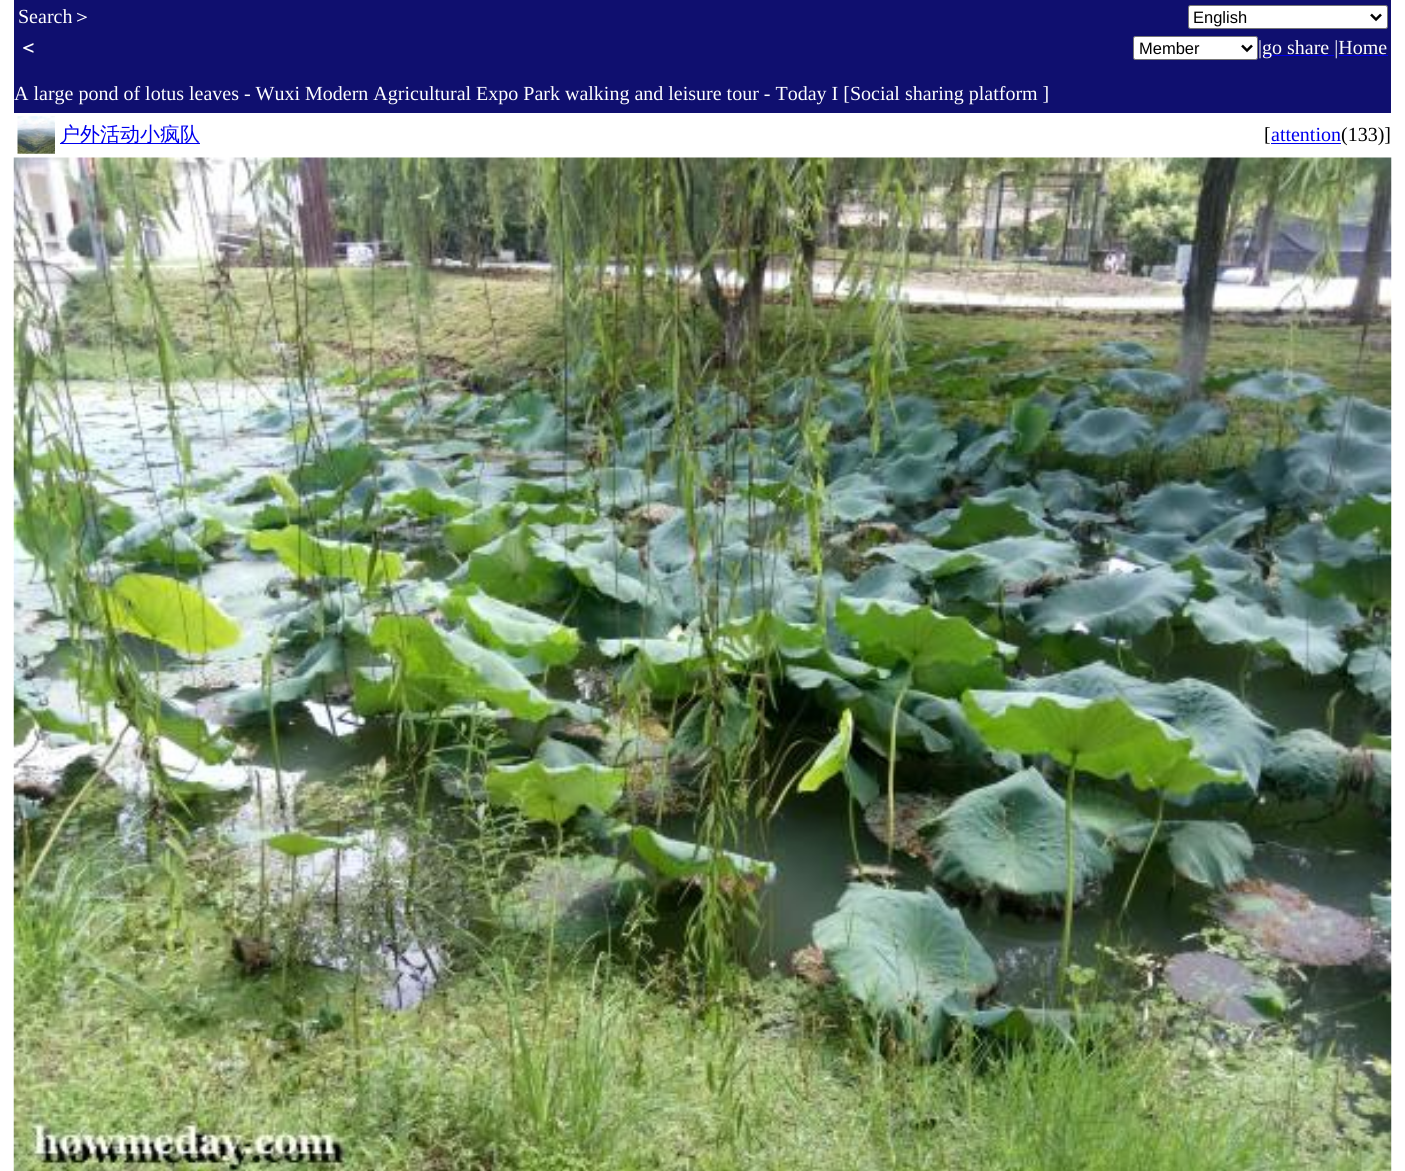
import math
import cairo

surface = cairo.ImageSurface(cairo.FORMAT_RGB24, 1405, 1171)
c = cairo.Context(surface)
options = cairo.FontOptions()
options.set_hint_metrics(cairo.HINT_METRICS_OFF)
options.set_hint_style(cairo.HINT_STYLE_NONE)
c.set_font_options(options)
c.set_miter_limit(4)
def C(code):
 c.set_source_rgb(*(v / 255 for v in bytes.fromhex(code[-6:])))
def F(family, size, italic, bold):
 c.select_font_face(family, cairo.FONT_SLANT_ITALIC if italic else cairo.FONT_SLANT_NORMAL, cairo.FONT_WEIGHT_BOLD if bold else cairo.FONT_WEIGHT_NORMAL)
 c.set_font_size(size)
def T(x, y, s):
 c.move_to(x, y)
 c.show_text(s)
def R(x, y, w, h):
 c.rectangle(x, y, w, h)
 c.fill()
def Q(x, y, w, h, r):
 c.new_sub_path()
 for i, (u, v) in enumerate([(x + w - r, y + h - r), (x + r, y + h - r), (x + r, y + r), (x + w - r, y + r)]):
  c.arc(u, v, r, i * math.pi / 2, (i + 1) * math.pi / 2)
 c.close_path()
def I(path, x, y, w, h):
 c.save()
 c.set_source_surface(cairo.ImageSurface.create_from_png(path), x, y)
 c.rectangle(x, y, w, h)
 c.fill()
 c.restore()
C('ffffff')
c.paint()
C('0f0f6f')
R(14,0,1377,113)
F('Liberation Serif',20,0,0)
C('ffffff')
T(18,23,'Search')
F('WenQuanYi Zen Hei Medium',20,0,0)
T(72,23,'＞')
Q(1188.5,5.5,199,23,2)
c.fill_preserve()
C('767676')
c.set_line_width(1)
c.stroke()
c.new_path()
c.move_to(1371,14.5)
c.line_to(1376,19.5)
c.line_to(1381,14.5)
C('000000')
c.set_line_width(2.5)
c.stroke()
F('Liberation Sans',16.5,0,0)
T(1193,23,'English')
F('WenQuanYi Zen Hei',20,0,1)
C('ffffff')
T(18,54,'＜')
Q(1133.5,36.5,124,23,2)
c.fill_preserve()
C('767676')
c.set_line_width(1)
c.stroke()
c.new_path()
c.move_to(1242,45.5)
c.line_to(1247,50.5)
c.line_to(1252,45.5)
C('000000')
c.set_line_width(2.5)
c.stroke()
F('Liberation Sans',16.5,0,0)
T(1139,54,'Member')
F('Liberation Serif',20,0,0)
C('ffffff')
T(1258,54,'|')
C('0000ee')
R(1263,55,71,1)
C('ffffff')
T(1262,54,'go share |Home')
C('0000ee')
R(1339,55,49,1)
C('ffffff')
T(14,100,'A large pond of lotus leaves - Wuxi Modern Agricultural Expo Park walking and leisure tour - Today I [Social sharing platform ]')
I('1.png',17,116,38,38)
C('0000ee')
R(60,143,140,1)
F('WenQuanYi Zen Hei Medium',20,0,0)
T(60,141,'户外活动小疯队')
F('Liberation Serif',20,0,0)
C('000000')
T(1264,141,'[')
C('0000ee')
T(1271,141,'attention')
C('000000')
T(1341,141,'(133)]')
C('0000ee')
R(1271,143,70,1)
I('2.png',13,157,1379,1014)
surface.write_to_png('o.png')
